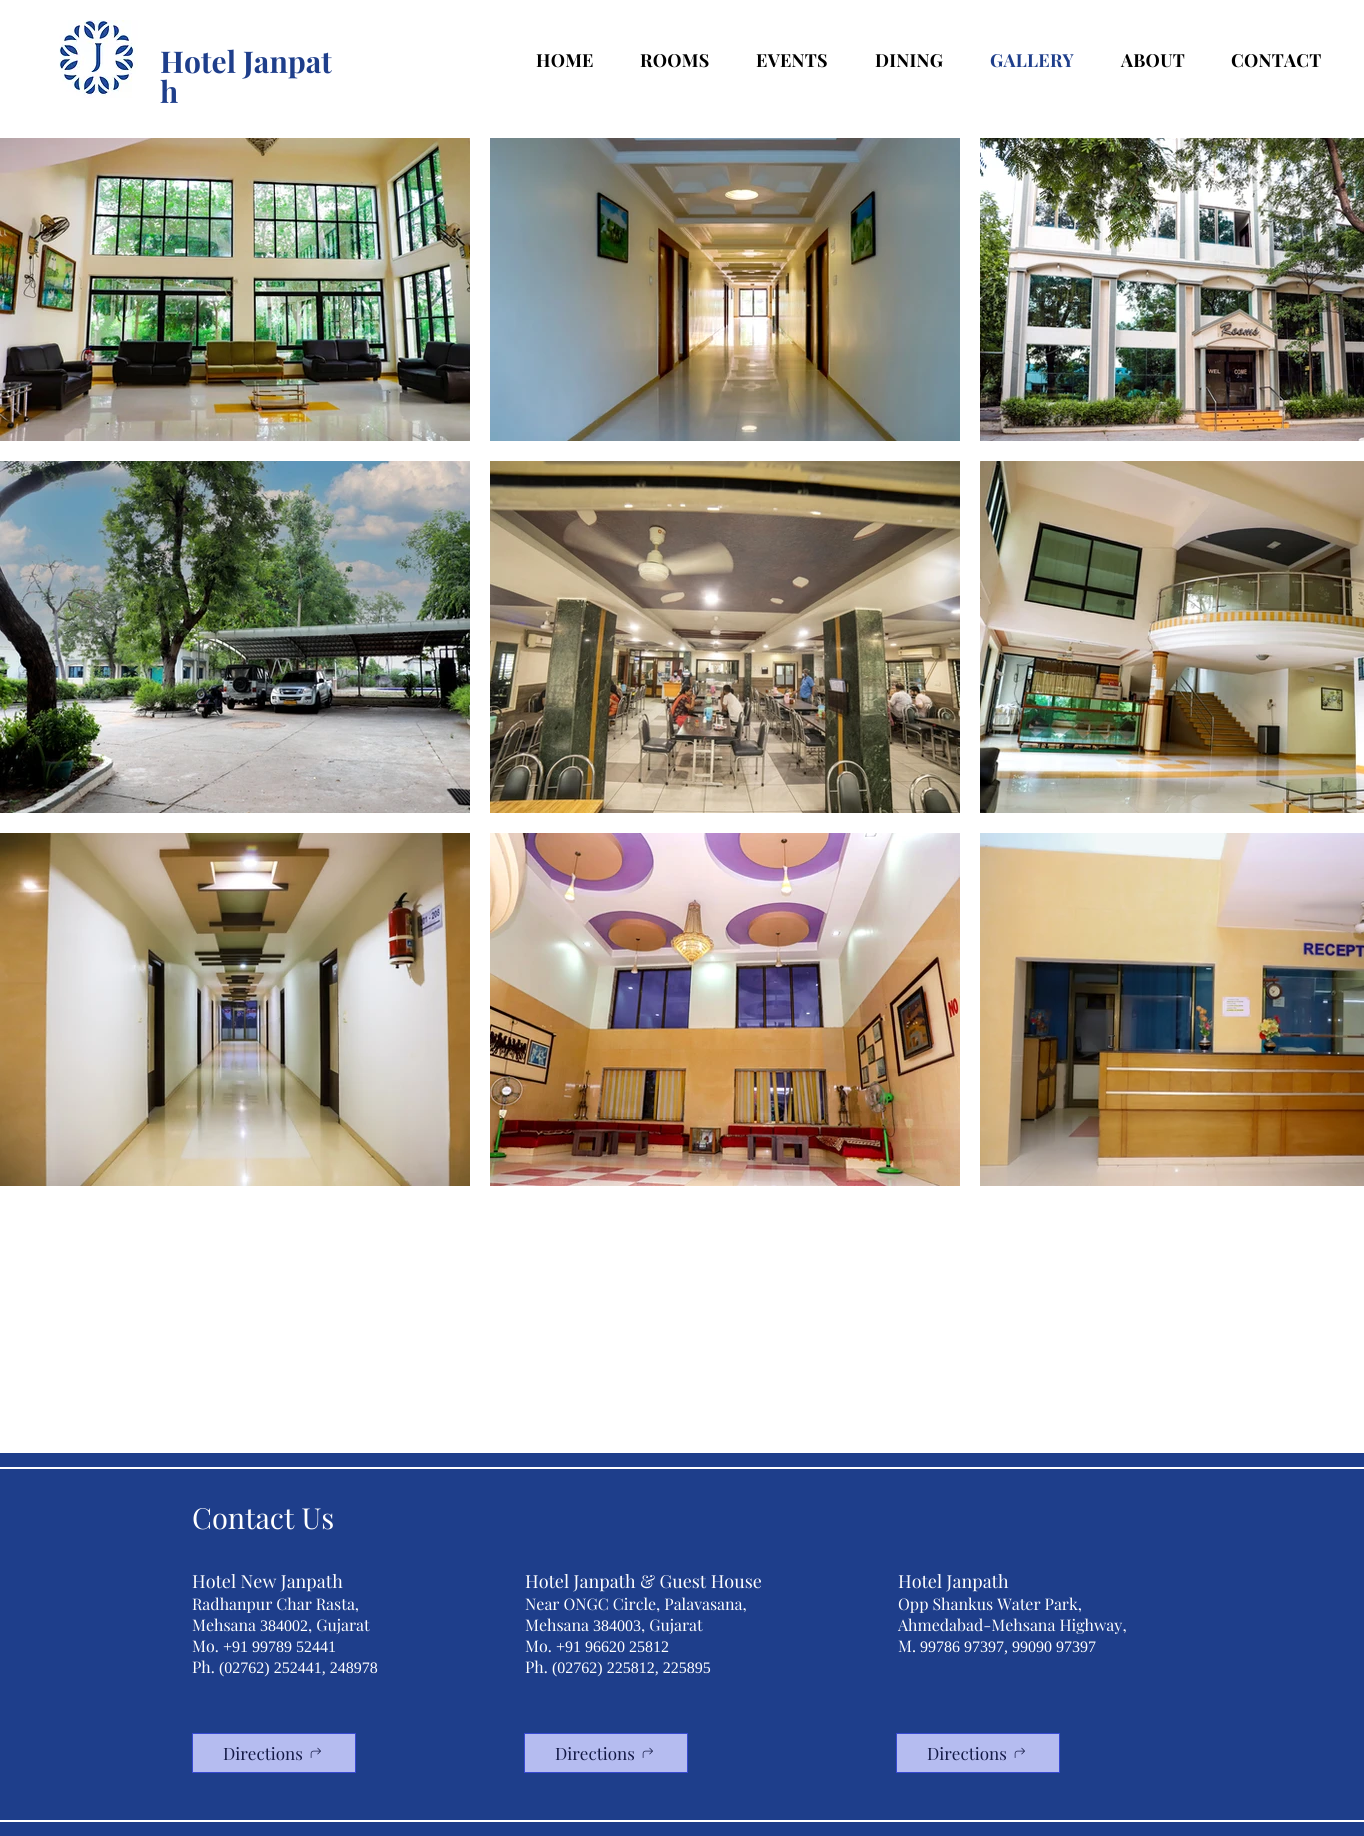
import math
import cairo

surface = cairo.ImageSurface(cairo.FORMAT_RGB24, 1364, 1836)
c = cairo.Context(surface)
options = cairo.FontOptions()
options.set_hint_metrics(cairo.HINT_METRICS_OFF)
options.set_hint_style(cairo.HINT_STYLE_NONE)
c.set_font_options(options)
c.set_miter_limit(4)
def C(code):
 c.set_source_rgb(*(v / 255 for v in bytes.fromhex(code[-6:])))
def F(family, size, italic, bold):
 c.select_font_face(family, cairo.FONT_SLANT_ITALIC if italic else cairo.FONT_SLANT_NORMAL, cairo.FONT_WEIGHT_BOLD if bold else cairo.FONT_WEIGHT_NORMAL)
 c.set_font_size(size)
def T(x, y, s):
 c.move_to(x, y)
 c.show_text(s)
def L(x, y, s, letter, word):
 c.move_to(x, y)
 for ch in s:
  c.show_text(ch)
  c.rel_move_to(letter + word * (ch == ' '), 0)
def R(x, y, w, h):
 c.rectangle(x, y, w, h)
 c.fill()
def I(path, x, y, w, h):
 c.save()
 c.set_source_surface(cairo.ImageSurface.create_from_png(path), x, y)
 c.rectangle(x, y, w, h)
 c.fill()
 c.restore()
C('ffffff')
c.paint()
I('1.png',59,20,79,78)
F('Playfair Display',30,0,1)
C('1e3e8b')
T(160,73,'Hotel Janpat')
T(160,103,'h')
F('Playfair Display',18,0,1)
C('000000')
L(536,67,'HOME',.25,0)
L(640,67,'ROOMS',.25,0)
L(756,67,'EVENTS',.25,0)
L(875,67,'DINING',.25,0)
C('1e3e8b')
L(990,67,'GALLERY',.25,0)
C('000000')
L(1121,67,'ABOUT',.25,0)
L(1231,67,'CONTACT',.25,0)
I('2.png',0,138,470,303)
I('3.png',490,138,470,303)
I('4.png',980,138,384,303)
I('5.png',0,461,470,352)
I('6.png',490,461,470,352)
I('7.png',980,461,384,352)
I('8.png',0,833,470,353)
I('9.png',490,833,470,353)
I('10.png',980,833,384,353)
C('1e3e8b')
R(0,1453,1364,383)
C('ffffff')
R(0,1467,1364,2)
R(0,1820,1364,2)
F('Playfair Display',29,0,0)
T(192,1529,'Contact Us')
F('Playfair Display',18,0,0)
T(192,1588,'Hotel New Janpath')
F('Playfair Display',16,0,0)
T(192,1610,'Radhanpur Char Rasta,')
T(192,1631,'Mehsana')
F('Liberation Serif',16,0,0)
T(260,1631,'384002')
F('Playfair Display',16,0,0)
T(308,1631,', Gujarat')
T(192,1652,'Mo.')
F('Liberation Serif',16,0,0)
T(223,1652,'+91 99789 52441')
F('Playfair Display',16,0,0)
T(192,1673,'Ph.')
F('Liberation Serif',16,0,0)
T(219,1673,'(02762) 252441, 248978')
F('Playfair Display',18,0,0)
T(525,1588,'Hotel Janpath & Guest House')
F('Playfair Display',16,0,0)
T(525,1610,'Near ONGC Circle, Palavasana,')
T(525,1631,'Mehsana')
F('Liberation Serif',16,0,0)
T(593,1631,'384003')
F('Playfair Display',16,0,0)
T(641,1631,', Gujarat')
T(525,1652,'Mo.')
F('Liberation Serif',16,0,0)
T(556,1652,'+91 96620 25812')
F('Playfair Display',16,0,0)
T(525,1673,'Ph.')
F('Liberation Serif',16,0,0)
T(552,1673,'(02762) 225812, 225895')
F('Playfair Display',18,0,0)
T(898,1588,'Hotel Janpath')
F('Playfair Display',16,0,0)
T(898,1610,'Opp Shankus Water Park,')
T(898,1631,'Ahmedabad-Mehsana Highway,')
T(898,1652,'M.')
F('Liberation Serif',16,0,0)
T(920,1652,'99786 97397, 99090 97397')
C('b5bcf0')
c.rectangle(192.5,1733.5,163,39)
c.fill_preserve()
C('384ad3')
c.set_line_width(1)
c.stroke()
F('Playfair Display',17,0,0)
C('131946')
T(223,1760,'Directions')
I('11.png',310,1747,11,11)
C('b5bcf0')
c.rectangle(524.5,1733.5,163,39)
c.fill_preserve()
C('384ad3')
c.stroke()
C('131946')
T(555,1760,'Directions')
I('11.png',642,1747,11,11)
C('b5bcf0')
c.rectangle(896.5,1733.5,163,39)
c.fill_preserve()
C('384ad3')
c.stroke()
C('131946')
T(927,1760,'Directions')
I('11.png',1014,1747,11,11)
surface.write_to_png('o.png')
